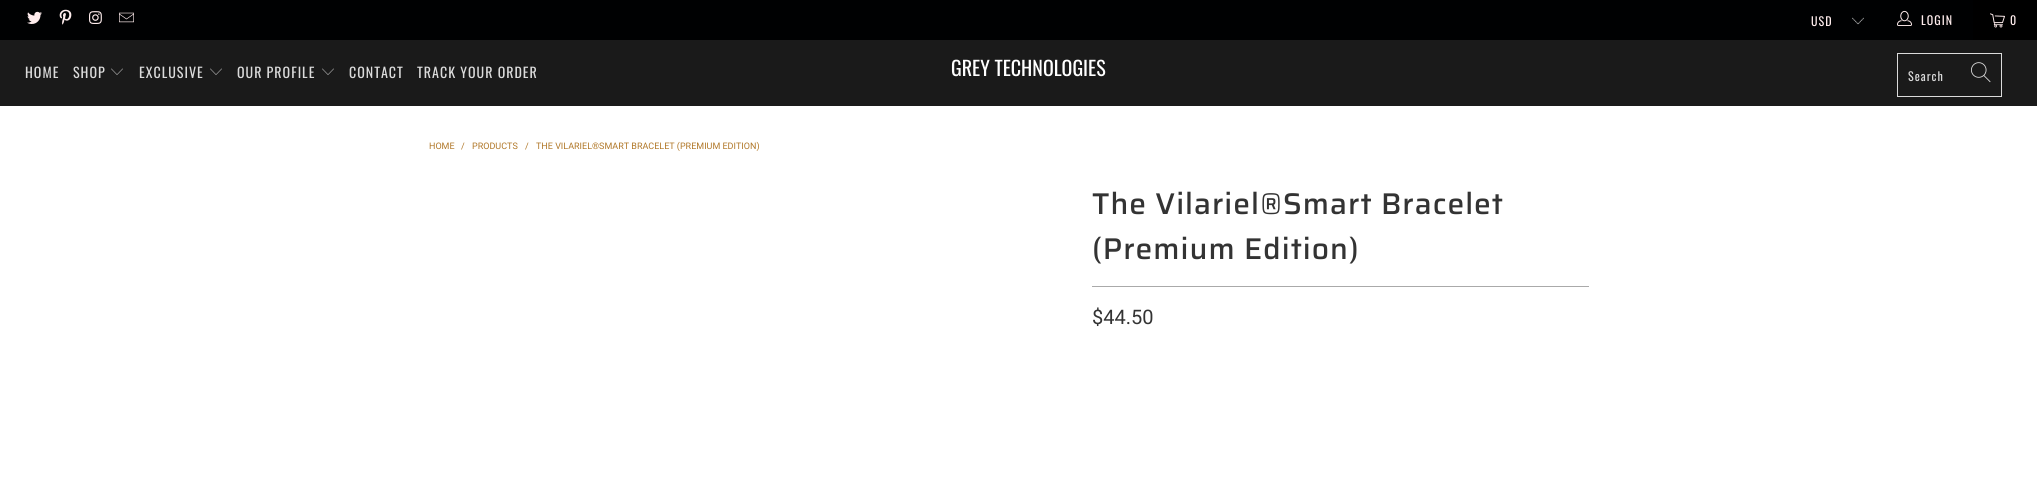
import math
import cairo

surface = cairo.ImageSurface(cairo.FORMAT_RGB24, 2037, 482)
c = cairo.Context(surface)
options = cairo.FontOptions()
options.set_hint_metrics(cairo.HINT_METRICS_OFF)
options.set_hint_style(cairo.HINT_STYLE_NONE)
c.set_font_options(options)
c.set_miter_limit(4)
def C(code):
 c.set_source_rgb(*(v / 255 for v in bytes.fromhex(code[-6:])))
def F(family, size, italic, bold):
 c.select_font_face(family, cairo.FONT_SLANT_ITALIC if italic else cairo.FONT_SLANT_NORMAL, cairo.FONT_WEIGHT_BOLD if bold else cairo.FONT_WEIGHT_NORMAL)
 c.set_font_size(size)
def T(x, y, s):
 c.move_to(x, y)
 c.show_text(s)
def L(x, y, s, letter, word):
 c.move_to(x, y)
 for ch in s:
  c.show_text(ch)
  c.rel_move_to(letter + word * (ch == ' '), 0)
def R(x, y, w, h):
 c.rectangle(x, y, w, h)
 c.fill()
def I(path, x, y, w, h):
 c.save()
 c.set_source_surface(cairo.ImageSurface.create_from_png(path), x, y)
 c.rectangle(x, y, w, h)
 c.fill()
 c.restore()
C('ffffff')
c.paint()
C('000102')
R(0,0,1973,40)
I('1.png',27,11,15,13)
I('2.png',59,9,13,16)
I('3.png',89,11,13,13)
I('4.png',119,12,15,11)
I('5.png',1852,17,12,8)
F('Oswald',12,0,0)
C('ffeded')
L(1811,26,'USD',1,0)
I('6.png',1897,10,15,16)
L(1921,25,'LOGIN',1,0)
C('000000')
R(1973,0,64,40)
I('7.png',1990,13,15,15)
C('ffeded')
L(2010,25,'0',1,0)
C('1a1a1a')
R(0,40,2037,66)
F('Oswald',14,0,0)
C('dbdbdb')
L(25,78,'HOME',1,0)
L(73,78,'SHOP',1,0)
I('8.png',111,68,12,7)
L(139,78,'EXCLUSIVE',1,0)
I('8.png',210,68,12,7)
L(237,78,'OUR PROFILE',1,0)
I('8.png',322,68,12,7)
L(349,78,'CONTACT',1,0)
L(417,78,'TRACK YOUR ORDER',1,0)
F('Oswald',20,0,0)
C('ffffff')
T(951,76,'GREY TECHNOLOGIES')
c.rectangle(1897.5,53.5,104,43)
C('dbdbdb')
c.set_line_width(1)
c.stroke()
F('Oswald',12,0,0)
L(1908,81,'Search',1,0)
I('9.png',1971,62,20,21)
F('Roboto',9,0,0)
C('b17829')
T(429,149,'HOME')
T(461,149,'/')
T(472,149,'PRODUCTS')
T(525,149,'/')
T(536,149,'THE VILARIEL®SMART BRACELET (PREMIUM EDITION)')
F('Saira Medium',30,0,0)
C('333333')
L(1092,214,'The Vilariel®Smart Bracelet',1,0)
L(1092,259,'(Premium Edition)',1,0)
C('aaaaaa')
R(1092,286,497,1)
F('Roboto',20,0,0)
C('333333')
T(1092,324,'$44.50')
surface.write_to_png('o.png')
